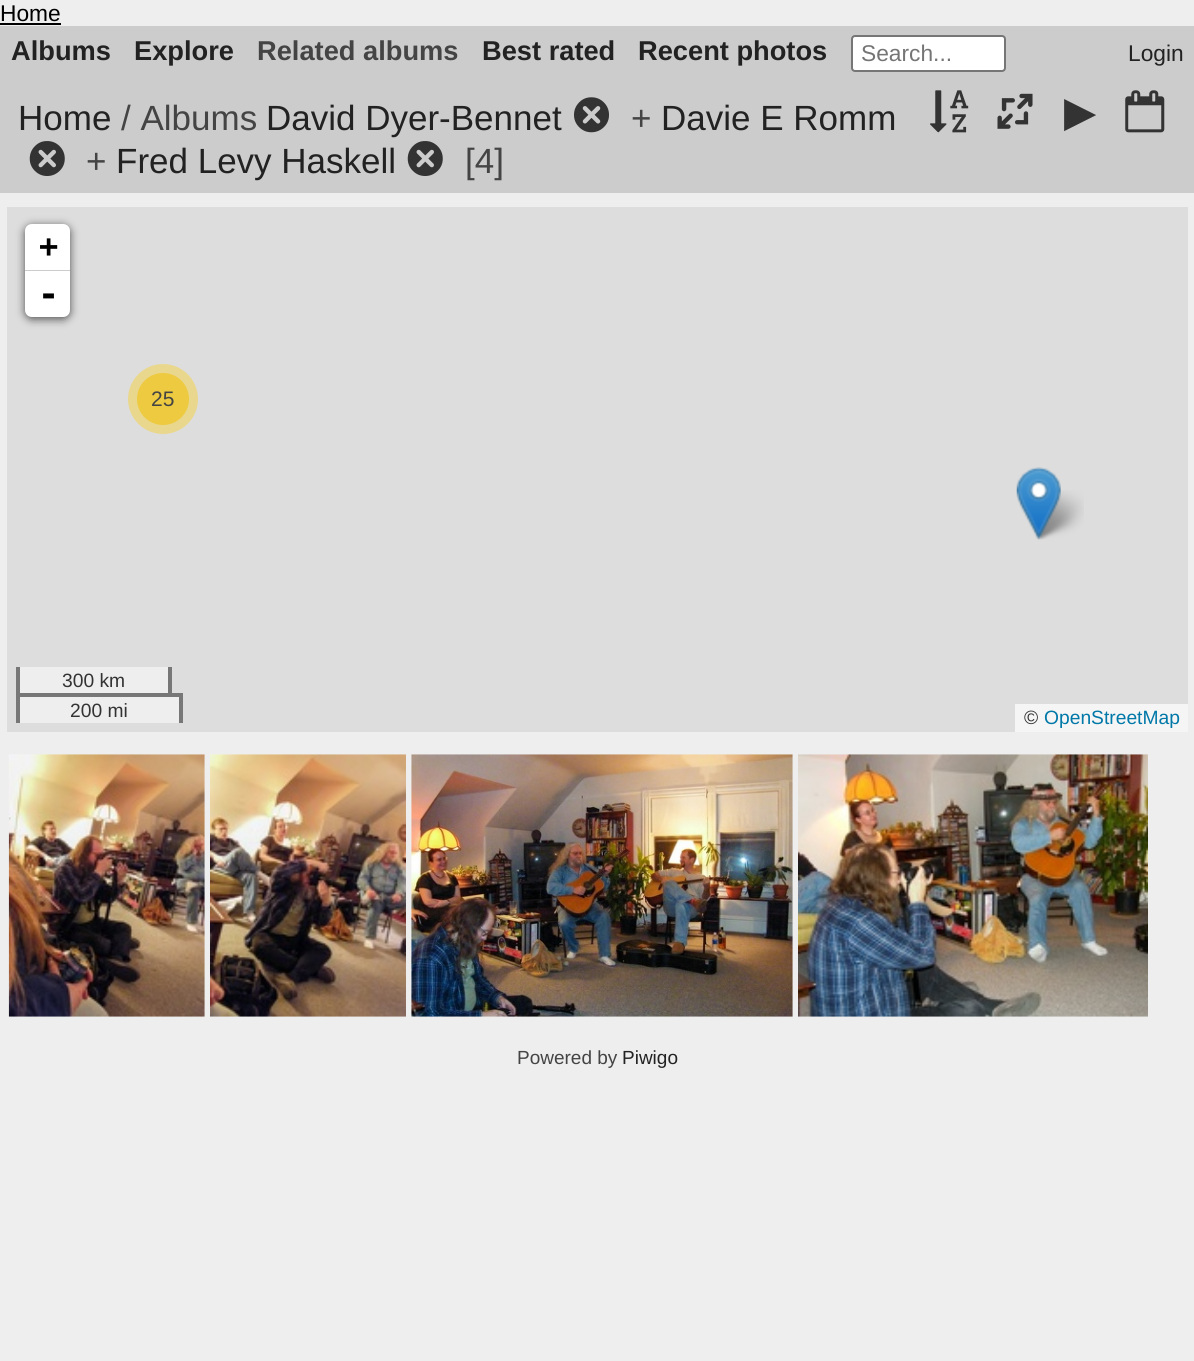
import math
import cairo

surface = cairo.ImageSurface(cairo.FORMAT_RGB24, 1194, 1361)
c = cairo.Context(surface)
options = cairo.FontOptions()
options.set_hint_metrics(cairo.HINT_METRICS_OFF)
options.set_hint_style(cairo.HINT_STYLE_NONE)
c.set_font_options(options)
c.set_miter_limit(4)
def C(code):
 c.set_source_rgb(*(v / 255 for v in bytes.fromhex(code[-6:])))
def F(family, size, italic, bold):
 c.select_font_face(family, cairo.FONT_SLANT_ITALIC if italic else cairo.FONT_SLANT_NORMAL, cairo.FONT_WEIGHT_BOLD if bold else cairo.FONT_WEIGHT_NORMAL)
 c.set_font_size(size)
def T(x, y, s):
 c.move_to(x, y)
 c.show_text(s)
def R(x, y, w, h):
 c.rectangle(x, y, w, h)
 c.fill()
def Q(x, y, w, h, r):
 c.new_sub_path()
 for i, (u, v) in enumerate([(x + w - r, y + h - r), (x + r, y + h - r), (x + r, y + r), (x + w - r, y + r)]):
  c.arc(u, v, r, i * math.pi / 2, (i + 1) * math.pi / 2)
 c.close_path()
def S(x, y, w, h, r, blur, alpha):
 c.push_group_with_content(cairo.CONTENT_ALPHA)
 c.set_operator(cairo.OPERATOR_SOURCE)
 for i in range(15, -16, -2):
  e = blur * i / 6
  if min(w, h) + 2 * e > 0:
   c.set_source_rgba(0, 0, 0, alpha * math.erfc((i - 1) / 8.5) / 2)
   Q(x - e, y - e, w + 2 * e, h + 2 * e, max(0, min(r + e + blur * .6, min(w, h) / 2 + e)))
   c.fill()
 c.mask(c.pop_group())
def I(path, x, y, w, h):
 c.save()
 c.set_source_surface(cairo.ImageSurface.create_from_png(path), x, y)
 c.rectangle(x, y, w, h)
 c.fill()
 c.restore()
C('eeeeee')
c.paint()
F('Liberation Sans',22.75,0,0)
C('000000')
T(0,21,'Home')
R(0,23,61,2)
C('cccccc')
R(0,26,1194,167)
F('Liberation Sans',27.25,0,1)
C('222222')
T(11,60,'Albums')
T(134,60,'Explore')
C('444444')
T(257,60,'Related albums')
C('222222')
T(482,60,'Best rated')
T(638,60,'Recent photos')
C('ffffff')
Q(852,36,153,35,3)
c.fill_preserve()
C('767676')
c.stroke()
F('Liberation Sans',22.75,0,0)
C('757575')
T(861,61,'Search...')
C('222222')
T(1128,61,'Login')
F('Liberation Sans',35,0,0)
T(18,130,'Home')
C('444444')
T(121,130,'/ Albums')
C('222222')
T(266,130,'David Dyer-Bennet')
I('1.png',574,97,35,36)
C('444444')
T(631,130,'+')
C('222222')
T(661,130,'Davie E Romm')
I('2.png',29,141,36,35)
C('444444')
T(86,173,'+')
C('222222')
T(116,173,'Fred Levy Haskell')
I('2.png',407,141,36,35)
C('444444')
T(465,173,'[4]')
I('3.png',930,90,39,43)
I('4.png',997,93,36,36)
F('DejaVu Sans',42,0,0)
C('333333')
T(1064,126,'▶')
I('5.png',1125,90,40,43)
C('dddddd')
R(7,207,1181,525)
C('eeeeee')
R(20,697,159,26)
C('000000')
S(25,226,45,93,7,4.5,.65)
C('ffffff')
c.new_path()
c.move_to(32,224)
c.line_to(63,224)
c.curve_to(67,224,70,227,70,231)
c.line_to(70,271)
c.line_to(25,271)
c.line_to(25,231)
c.curve_to(25,227,28,224,32,224)
c.close_path()
c.fill()
C('cccccc')
R(25,270,45,1)
F('DejaVu Sans Mono',32,0,1)
C('000000')
T(39,257,'+')
C('ffffff')
c.new_path()
c.move_to(25,271)
c.line_to(70,271)
c.line_to(70,310)
c.curve_to(70,314,67,317,63,317)
c.line_to(32,317)
c.curve_to(28,317,25,314,25,310)
c.close_path()
c.fill()
F('DejaVu Sans Mono',35,0,1)
C('000000')
T(38,306,'-')
C('eeeeee')
R(20,667,148,26)
C('777777')
R(168,667,4,30)
R(16,667,4,30)
F('Liberation Sans',19.25,0,0)
C('333333')
T(62,687,'300 km')
C('777777')
R(16,693,166,4)
R(179,693,4,30)
R(16,693,4,30)
C('333333')
T(70,717,'200 mi')
C('f5f5f5')
R(1015,704,173,28)
C('333333')
T(1024,724,'©')
C('0078a8')
T(1044,724,'OpenStreetMap')
C('e9d78d')
c.new_path()
c.arc(163,399,35,0,2 * math.pi)
c.fill()
C('edca40')
c.arc(163,399,26,0,2 * math.pi)
c.fill()
F('Liberation Sans',21,0,0)
C('444444')
T(151,406,'25')
I('7.png',1032,490,52,50)
I('6.png',1016,467,45,73)
I('8.png',8,754,197,263)
I('9.png',210,754,196,263)
I('10.png',411,754,382,263)
I('11.png',798,754,350,263)
F('Liberation Sans',19,0,0)
T(517,1064,'Powered by')
C('222222')
T(622,1064,'Piwigo')
surface.write_to_png('o.png')
